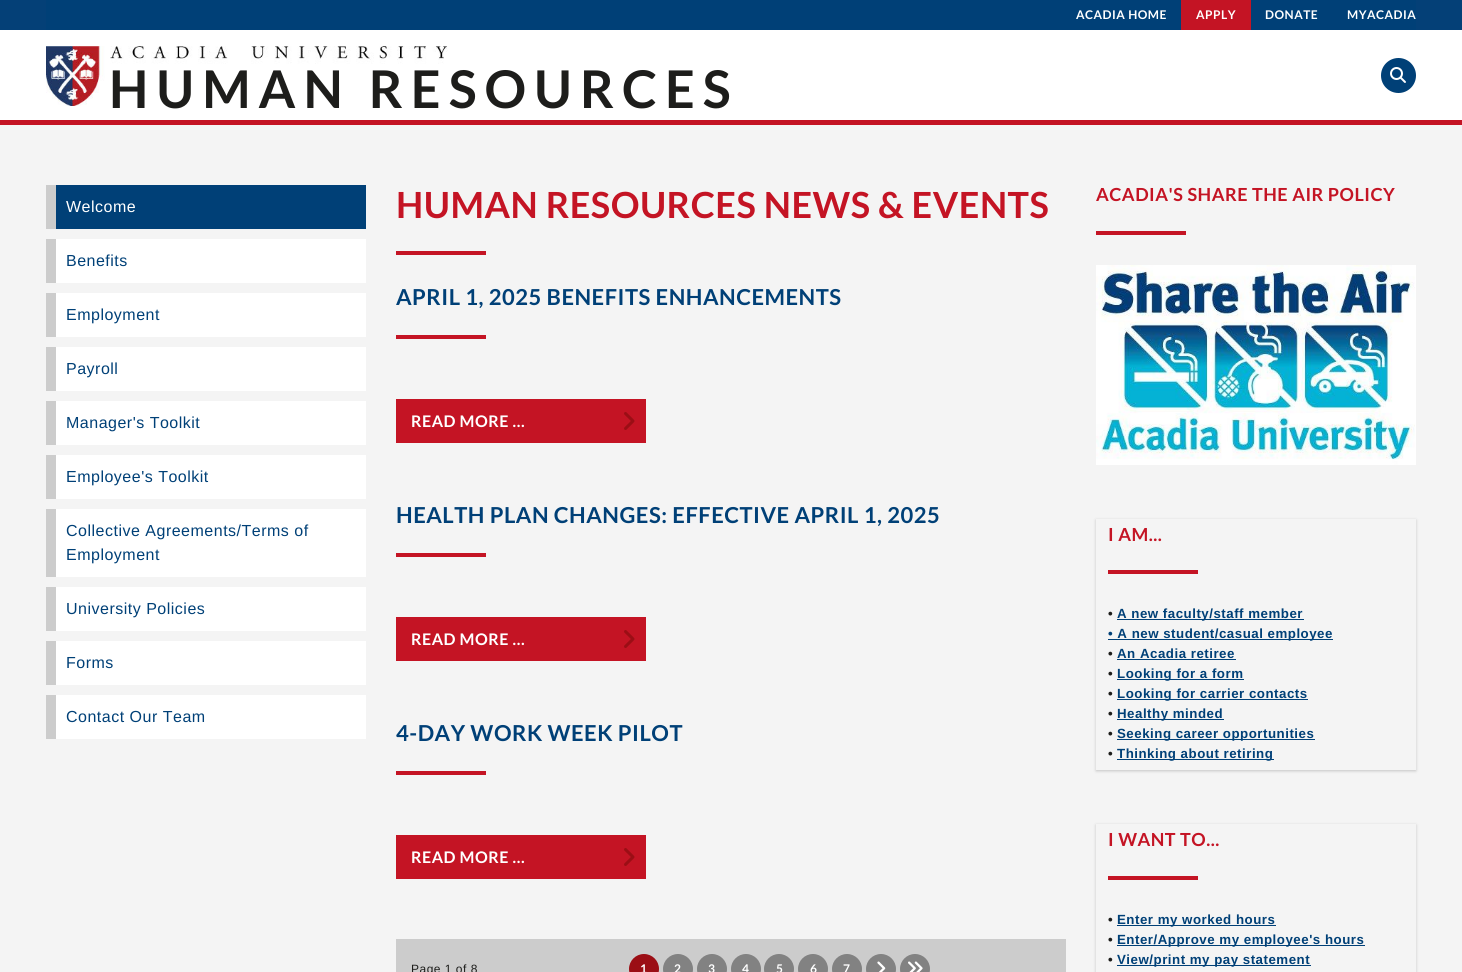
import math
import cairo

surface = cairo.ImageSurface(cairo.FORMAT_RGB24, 1462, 972)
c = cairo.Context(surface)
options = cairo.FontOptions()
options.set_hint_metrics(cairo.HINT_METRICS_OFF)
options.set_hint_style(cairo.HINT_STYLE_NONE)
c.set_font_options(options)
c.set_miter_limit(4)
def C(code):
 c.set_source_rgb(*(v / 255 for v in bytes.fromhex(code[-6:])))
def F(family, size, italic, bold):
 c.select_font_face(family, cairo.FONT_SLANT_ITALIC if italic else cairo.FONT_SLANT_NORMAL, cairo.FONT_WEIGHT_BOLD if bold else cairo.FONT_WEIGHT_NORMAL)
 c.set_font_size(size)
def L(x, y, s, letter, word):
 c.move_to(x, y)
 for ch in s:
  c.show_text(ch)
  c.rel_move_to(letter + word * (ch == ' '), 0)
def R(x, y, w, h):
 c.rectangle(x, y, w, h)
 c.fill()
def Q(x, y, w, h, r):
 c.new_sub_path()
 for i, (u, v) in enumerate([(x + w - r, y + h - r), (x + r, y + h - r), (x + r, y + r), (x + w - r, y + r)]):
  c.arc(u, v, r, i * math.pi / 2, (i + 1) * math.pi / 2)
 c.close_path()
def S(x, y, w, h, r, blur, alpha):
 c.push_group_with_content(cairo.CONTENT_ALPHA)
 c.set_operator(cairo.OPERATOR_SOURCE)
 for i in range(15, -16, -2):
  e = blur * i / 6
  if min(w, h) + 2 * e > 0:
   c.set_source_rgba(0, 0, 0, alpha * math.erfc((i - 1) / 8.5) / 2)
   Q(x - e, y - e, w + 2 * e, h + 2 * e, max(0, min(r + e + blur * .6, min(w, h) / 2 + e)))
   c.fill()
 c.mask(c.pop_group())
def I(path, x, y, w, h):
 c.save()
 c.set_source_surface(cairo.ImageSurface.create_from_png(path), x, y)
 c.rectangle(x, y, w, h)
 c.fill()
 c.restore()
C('f4f4f4')
c.paint()
C('044077')
R(0,0,1462,30)
C('ffffff')
R(0,30,1462,90)
C('c41424')
R(0,120,1462,5)
C('004077')
R(46,0,1370,30)
F('Lato',12,0,1)
C('ffffff')
L(1076,19,'ACADIA HOME',.5,0)
C('c41424')
R(1181,0,70,30)
C('ffffff')
L(1196,19,'APPLY',.5,0)
L(1265,19,'DONATE',.5,0)
L(1347,19,'MYACADIA',.5,0)
I('1.png',46,46,402,60)
C('004077')
c.arc(1398.5,75.5,17.5,0,2 * math.pi)
c.fill()
I('2.png',1390,67,16,16)
F('Lato',52,0,1)
C('1d1d1b')
L(109,108,'HUMAN RESOURCES',8,0)
C('004077')
R(56,185,310,44)
C('cccccc')
R(46,185,10,44)
F('Liberation Sans',16,0,0)
C('ffffff')
L(66,212,'Welcome',.5,0)
R(56,239,310,44)
C('cccccc')
R(46,239,10,44)
C('004077')
L(66,266,'Benefits',.5,0)
C('ffffff')
R(56,293,310,44)
C('cccccc')
R(46,293,10,44)
C('004077')
L(66,320,'Employment',.5,0)
C('ffffff')
R(56,347,310,44)
C('cccccc')
R(46,347,10,44)
C('004077')
L(66,374,'Payroll',.5,0)
C('ffffff')
R(56,401,310,44)
C('cccccc')
R(46,401,10,44)
C('004077')
L(66,428,'Manager\'s Toolkit',.5,0)
C('ffffff')
R(56,455,310,44)
C('cccccc')
R(46,455,10,44)
C('004077')
L(66,482,'Employee\'s Toolkit',.5,0)
C('ffffff')
R(56,509,310,68)
C('cccccc')
R(46,509,10,68)
C('004077')
L(66,536,'Collective Agreements/Terms of',.5,0)
L(66,560,'Employment',.5,0)
C('ffffff')
R(56,587,310,44)
C('cccccc')
R(46,587,10,44)
C('004077')
L(66,614,'University Policies',.5,0)
C('ffffff')
R(56,641,310,44)
C('cccccc')
R(46,641,10,44)
C('004077')
L(66,668,'Forms',.5,0)
C('ffffff')
R(56,695,310,44)
C('cccccc')
R(46,695,10,44)
C('004077')
L(66,722,'Contact Our Team',.5,0)
F('Lato',36,0,1)
C('c41424')
L(396,218,'HUMAN RESOURCES NEWS & EVENTS',.5,0)
R(396,251,90,4)
F('Lato',22,0,1)
C('004077')
L(396,305,'APRIL 1, 2025 BENEFITS ENHANCEMENTS',.5,0)
C('c41424')
R(396,335,90,4)
R(396,399,250,44)
F('Lato',16,0,1)
C('ffffff')
L(411,427,'READ MORE …',.5,0)
I('3.png',624,412,11,18)
F('Lato',22,0,1)
C('004077')
L(396,523,'HEALTH PLAN CHANGES: EFFECTIVE APRIL 1, 2025',.5,0)
C('c41424')
R(396,553,90,4)
R(396,617,250,44)
F('Lato',16,0,1)
C('ffffff')
L(411,645,'READ MORE …',.5,0)
I('3.png',624,630,11,18)
F('Lato',22,0,1)
C('004077')
L(396,741,'4-DAY WORK WEEK PILOT',.5,0)
C('c41424')
R(396,771,90,4)
R(396,835,250,44)
F('Lato',16,0,1)
C('ffffff')
L(411,863,'READ MORE …',.5,0)
I('3.png',624,848,11,18)
C('cccccc')
R(396,939,670,33)
F('Liberation Sans',12,0,0)
C('1d1d1b')
L(411,973,'Page 1 of 8',.5,0)
C('9b0e15')
c.new_path()
c.arc(644,969,15,0,2 * math.pi)
c.fill()
F('Lato',12,0,1)
C('ffffff')
L(640,973,'1',.5,0)
C('828282')
c.new_path()
c.arc(678,969,15,0,2 * math.pi)
c.fill()
C('ffffff')
L(674,973,'2',.5,0)
C('828282')
c.new_path()
c.arc(712,969,15,0,2 * math.pi)
c.fill()
C('ffffff')
L(708,973,'3',.5,0)
C('828282')
c.new_path()
c.arc(746,969,15,0,2 * math.pi)
c.fill()
C('ffffff')
L(742,973,'4',.5,0)
C('828282')
c.new_path()
c.arc(779,969,15,0,2 * math.pi)
c.fill()
C('ffffff')
L(776,973,'5',.5,0)
C('828282')
c.new_path()
c.arc(813,969,15,0,2 * math.pi)
c.fill()
C('ffffff')
L(810,973,'6',.5,0)
C('828282')
c.new_path()
c.arc(847,969,15,0,2 * math.pi)
c.fill()
C('ffffff')
L(843,973,'7',.5,0)
C('828282')
c.new_path()
c.arc(881,969,15,0,2 * math.pi)
c.fill()
I('4.png',877,961,9,11)
c.arc(915,969,15,0,2 * math.pi)
c.fill()
I('5.png',908,961,15,11)
F('Lato',18,0,1)
C('c41424')
L(1096,201,'ACADIA\'S SHARE THE AIR POLICY',.5,0)
R(1096,231,90,4)
I('6.png',1096,265,320,200)
C('000000')
S(1096,520,320,251,0,1.5,.2)
C('f4f4f4')
R(1096,519,320,251)
C('c41424')
L(1108,541,'I AM...',.5,0)
R(1108,570,90,4)
F('Liberation Sans',13.3,0,1)
C('1d1d1b')
L(1108,618,'•',.5,0)
C('004077')
R(1117,619,187,1)
L(1117,618,'A new faculty/staff member',.5,0)
R(1108,639,225,1)
L(1108,638,'• A new student/casual employee',.5,0)
C('1d1d1b')
L(1108,658,'•',.5,0)
C('004077')
L(1117,658,'An Acadia retiree',.5,0)
R(1117,659,119,1)
C('1d1d1b')
L(1108,678,'•',.5,0)
C('004077')
R(1117,679,127,1)
L(1117,678,'Looking for a form',.5,0)
C('1d1d1b')
L(1108,698,'•',.5,0)
C('004077')
R(1117,699,191,1)
L(1117,698,'Looking for carrier contacts',.5,0)
C('1d1d1b')
L(1108,718,'•',.5,0)
C('004077')
R(1117,719,107,1)
L(1117,718,'Healthy minded',.5,0)
C('1d1d1b')
L(1108,738,'•',.5,0)
C('004077')
R(1117,739,198,1)
L(1117,738,'Seeking career opportunities',.5,0)
C('1d1d1b')
L(1108,758,'•',.5,0)
C('004077')
R(1117,759,157,1)
L(1117,758,'Thinking about retiring',.5,0)
C('000000')
S(1096,825,320,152,0,1.5,.2)
C('f4f4f4')
R(1096,824,320,148)
F('Lato',18,0,1)
C('c41424')
L(1108,846,'I WANT TO...',.5,0)
R(1108,876,90,4)
F('Liberation Sans',13.3,0,1)
C('1d1d1b')
L(1108,924,'•',.5,0)
C('004077')
R(1117,925,159,1)
L(1117,924,'Enter my worked hours',.5,0)
C('1d1d1b')
L(1108,944,'•',.5,0)
C('004077')
R(1117,945,248,1)
L(1117,944,'Enter/Approve my employee\'s hours',.5,0)
C('1d1d1b')
L(1108,964,'•',.5,0)
C('004077')
R(1117,965,194,1)
L(1117,964,'View/print my pay statement',.5,0)
surface.write_to_png('o.png')
